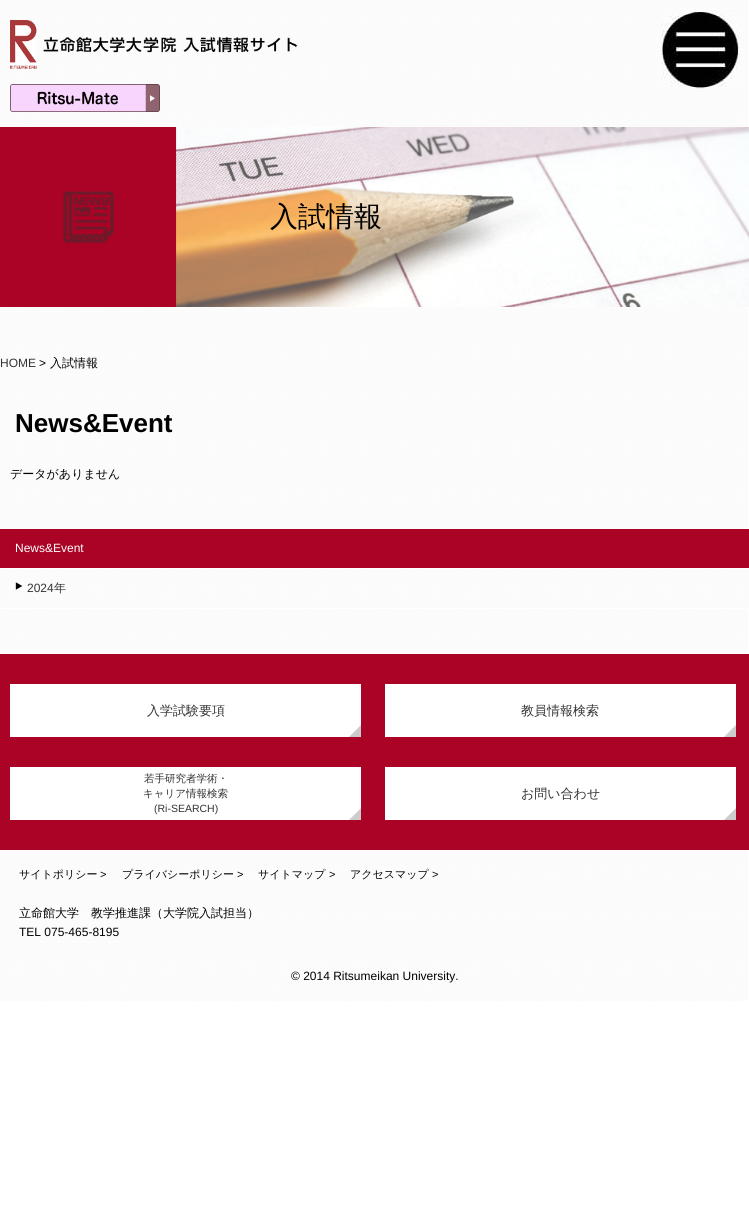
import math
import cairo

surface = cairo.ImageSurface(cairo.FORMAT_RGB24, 749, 1216)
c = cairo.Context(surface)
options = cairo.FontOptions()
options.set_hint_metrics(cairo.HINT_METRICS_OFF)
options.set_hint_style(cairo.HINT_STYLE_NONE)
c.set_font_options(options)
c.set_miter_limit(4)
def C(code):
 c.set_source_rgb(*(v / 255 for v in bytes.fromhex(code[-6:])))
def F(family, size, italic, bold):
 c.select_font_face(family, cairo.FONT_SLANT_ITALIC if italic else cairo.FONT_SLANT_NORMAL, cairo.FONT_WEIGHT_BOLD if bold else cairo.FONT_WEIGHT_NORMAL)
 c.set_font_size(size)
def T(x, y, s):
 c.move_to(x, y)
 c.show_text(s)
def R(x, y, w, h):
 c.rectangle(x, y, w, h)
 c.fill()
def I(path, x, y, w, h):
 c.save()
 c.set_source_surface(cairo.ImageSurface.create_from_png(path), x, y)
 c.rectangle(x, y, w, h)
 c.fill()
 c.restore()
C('ffffff')
c.paint()
I('1.png',0,0,748,1001)
I('2.png',10,20,288,49)
I('3.png',662,12,77,77)
I('4.png',10,84,150,28)
I('5.png',0,127,749,180)
F('WenQuanYi Zen Hei Medium',28,0,0)
C('000000')
T(270,226,'入試情報')
F('Liberation Sans',12,0,0)
C('333333')
T(0,367,'HOME')
C('000000')
T(39,367,'>')
F('WenQuanYi Zen Hei Medium',12,0,0)
T(50,367,'入試情報')
F('Liberation Sans',26,0,1)
T(15,432,'News&Event')
F('WenQuanYi Zen Hei Medium',12,0,0)
T(10,478,'データがありません')
C('aa0325')
R(0,529,749,39)
C('ffffff')
R(0,568,749,1)
F('Liberation Sans',12,0,0)
T(15,552,'News&Event')
C('fbfbfb')
R(748,569,1,39)
I('6.png',15,582,8,8)
C('ffffff')
R(0,608,749,1)
C('333333')
T(27,592,'2024')
F('WenQuanYi Zen Hei Medium',12,0,0)
T(54,592,'年')
C('ab0326')
R(0,654,749,196)
C('ffffff')
R(10,684,351,53)
I('7.png',349,725,12,12)
F('WenQuanYi Zen Hei Medium',13,0,0)
C('333333')
T(147,715,'入学試験要項')
C('ffffff')
R(385,684,351,53)
I('7.png',724,725,12,12)
C('333333')
T(521,715,'教員情報検索')
C('ffffff')
R(10,767,351,53)
I('7.png',349,808,12,12)
F('WenQuanYi Zen Hei Medium',10.5,0,0)
C('333333')
T(144,782,'若手研究者学術・')
T(143,797,'キャリア情報検索')
F('Liberation Sans',10.5,0,0)
T(154,812,'(Ri-SEARCH)')
C('ffffff')
R(385,767,351,53)
I('7.png',724,808,12,12)
F('WenQuanYi Zen Hei Medium',13,0,0)
C('333333')
T(521,798,'お問い合わせ')
F('WenQuanYi Zen Hei Medium',11,0,0)
C('000000')
T(19,878,'サイトポリシー')
F('Liberation Sans',11,0,0)
T(100,878,'>')
F('WenQuanYi Zen Hei Medium',11,0,0)
T(122,878,'プライバシーポリシー')
F('Liberation Sans',11,0,0)
T(237,878,'>')
F('WenQuanYi Zen Hei Medium',11,0,0)
T(258,878,'サイトマップ')
F('Liberation Sans',11,0,0)
T(329,878,'>')
F('WenQuanYi Zen Hei Medium',11,0,0)
T(350,878,'アクセスマップ')
F('Liberation Sans',11,0,0)
T(432,878,'>')
F('WenQuanYi Zen Hei Medium',12,0,0)
T(19,917,'立命館大学　教学推進課（大学院入試担当）')
F('Liberation Sans',12,0,0)
T(19,936,'TEL 075-465-8195')
T(291,980,'© 2014 Ritsumeikan University.')
surface.write_to_png('o.png')
